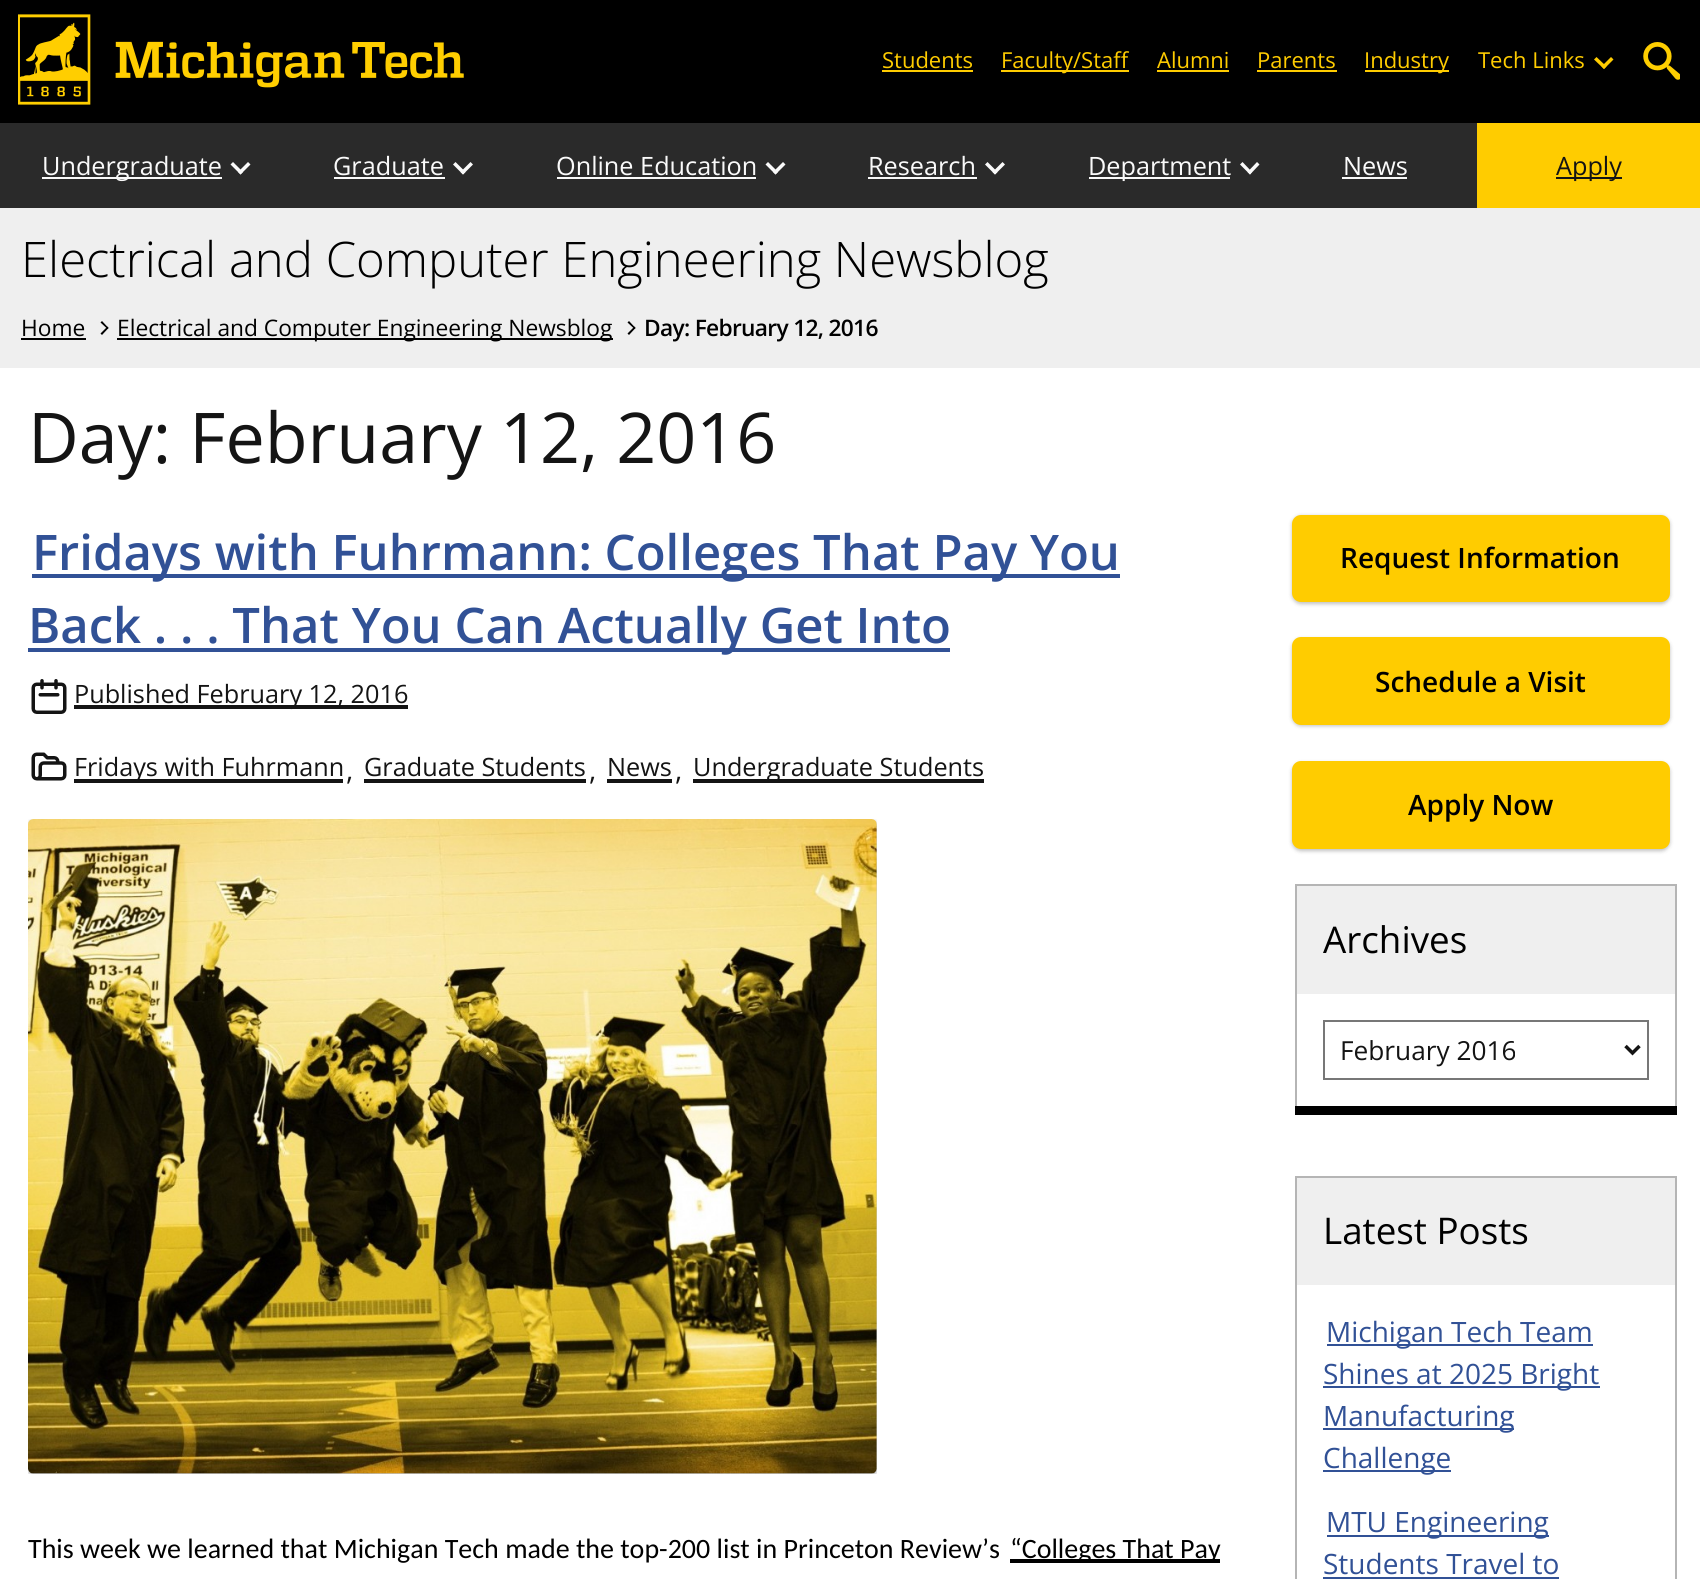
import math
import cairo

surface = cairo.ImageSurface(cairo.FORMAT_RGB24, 1700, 1579)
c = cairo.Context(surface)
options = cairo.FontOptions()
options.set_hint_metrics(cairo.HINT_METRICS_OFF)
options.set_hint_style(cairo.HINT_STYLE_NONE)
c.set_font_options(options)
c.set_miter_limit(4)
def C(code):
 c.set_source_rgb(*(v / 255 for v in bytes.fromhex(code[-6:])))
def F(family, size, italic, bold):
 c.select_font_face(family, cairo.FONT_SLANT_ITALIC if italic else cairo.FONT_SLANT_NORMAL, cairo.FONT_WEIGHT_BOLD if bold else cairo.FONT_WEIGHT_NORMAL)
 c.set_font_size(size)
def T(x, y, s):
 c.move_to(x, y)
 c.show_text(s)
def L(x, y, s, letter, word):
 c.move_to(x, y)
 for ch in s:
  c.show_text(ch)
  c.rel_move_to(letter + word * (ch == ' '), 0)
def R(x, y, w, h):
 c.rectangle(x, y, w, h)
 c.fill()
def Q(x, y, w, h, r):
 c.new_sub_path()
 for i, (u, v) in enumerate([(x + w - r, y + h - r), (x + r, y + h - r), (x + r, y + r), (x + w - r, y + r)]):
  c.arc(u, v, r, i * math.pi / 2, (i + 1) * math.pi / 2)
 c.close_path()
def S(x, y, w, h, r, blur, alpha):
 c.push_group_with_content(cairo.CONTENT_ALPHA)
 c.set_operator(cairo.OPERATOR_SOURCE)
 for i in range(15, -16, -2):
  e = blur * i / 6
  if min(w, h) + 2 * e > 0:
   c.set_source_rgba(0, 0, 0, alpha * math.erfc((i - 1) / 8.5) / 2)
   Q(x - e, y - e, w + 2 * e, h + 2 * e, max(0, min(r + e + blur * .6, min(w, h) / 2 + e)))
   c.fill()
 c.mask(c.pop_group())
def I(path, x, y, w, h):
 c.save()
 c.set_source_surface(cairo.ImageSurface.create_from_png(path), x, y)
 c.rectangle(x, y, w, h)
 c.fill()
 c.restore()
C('ffffff')
c.paint()
C('000000')
R(0,0,1700,123)
I('1.png',18,14,446,91)
F('Open Sans',22,0,0)
C('ffcc00')
T(882,68,'Students')
R(882,70,91,2)
R(1001,70,128,2)
T(1001,68,'Faculty/Staff')
T(1157,68,'Alumni')
R(1157,70,72,2)
T(1257,68,'Parents')
R(1257,70,80,2)
R(1365,70,84,2)
T(1364,68,'Industry')
T(1478,68,'Tech Links')
c.new_path()
c.move_to(1611,57)
c.line_to(1613.5,59.5)
c.line_to(1604,69)
c.line_to(1601.5,66.5)
c.close_path()
c.fill()
c.new_path()
c.move_to(1596.5,57)
c.line_to(1606.5,66.5)
c.line_to(1604,69)
c.line_to(1594,59.5)
c.close_path()
c.fill()
I('2.png',1643,42,37,38)
C('2a2a2a')
R(0,123,1477,85)
C('fafafa')
R(42,177,180,2)
F('Open Sans',25.25,0,0)
T(42,175,'Undergraduate')
c.new_path()
c.move_to(248,162)
c.line_to(250.5,164.5)
c.line_to(240.5,174.5)
c.line_to(238,172)
c.close_path()
c.fill()
c.new_path()
c.move_to(233,162)
c.line_to(243,172)
c.line_to(240.5,174.5)
c.line_to(230.5,164.5)
c.close_path()
c.fill()
T(333,175,'Graduate')
R(334,177,111,2)
c.new_path()
c.move_to(470.5,162)
c.line_to(473,164.5)
c.line_to(463,174.5)
c.line_to(460.5,172)
c.close_path()
c.fill()
c.new_path()
c.move_to(455.5,162)
c.line_to(465.5,172)
c.line_to(463,174.5)
c.line_to(453,164.5)
c.close_path()
c.fill()
T(556,175,'Online Education')
R(557,177,199,2)
c.new_path()
c.move_to(783,162)
c.line_to(785.5,164.5)
c.line_to(775.5,174.5)
c.line_to(773,172)
c.close_path()
c.fill()
c.new_path()
c.move_to(768,162)
c.line_to(778,172)
c.line_to(775.5,174.5)
c.line_to(765.5,164.5)
c.close_path()
c.fill()
T(868,175,'Research')
R(868,177,109,2)
c.new_path()
c.move_to(1002.5,162)
c.line_to(1005,164.5)
c.line_to(995,174.5)
c.line_to(992.5,172)
c.close_path()
c.fill()
c.new_path()
c.move_to(987.5,162)
c.line_to(997.5,172)
c.line_to(995,174.5)
c.line_to(985,164.5)
c.close_path()
c.fill()
R(1089,177,141,2)
T(1088,175,'Department')
c.new_path()
c.move_to(1257,162)
c.line_to(1259.5,164.5)
c.line_to(1250,174.5)
c.line_to(1247.5,172)
c.close_path()
c.fill()
c.new_path()
c.move_to(1242.5,162)
c.line_to(1252,172)
c.line_to(1250,174.5)
c.line_to(1240,164.5)
c.close_path()
c.fill()
T(1343,175,'News')
R(1342,177,65,2)
C('ffcc00')
R(1477,123,223,85)
C('141414')
R(1556,177,66,2)
T(1556,175,'Apply')
C('efefef')
R(0,208,1700,160)
F('Open Sans Light',49,0,0)
C('000000')
T(21,277,'Electrical and Computer Engineering Newsblog')
F('Open Sans',22.75,0,0)
T(21,336,'Home')
R(21,338,65,2)
c.new_path()
c.move_to(102,321)
c.line_to(108.5,328)
c.line_to(107.5,329)
c.line_to(100.5,322.5)
c.close_path()
c.fill()
c.new_path()
c.move_to(107.5,326.5)
c.line_to(108.5,328)
c.line_to(102,335)
c.line_to(100.5,333.5)
c.close_path()
c.fill()
R(117,338,496,2)
T(117,336,'Electrical and Computer Engineering Newsblog')
c.new_path()
c.move_to(629,321)
c.line_to(635.5,328)
c.line_to(634.5,329)
c.line_to(627.5,322.5)
c.close_path()
c.fill()
c.new_path()
c.move_to(634.5,326.5)
c.line_to(635.5,328)
c.line_to(629,335)
c.line_to(627.5,333.5)
c.close_path()
c.fill()
F('Open Sans SemiBold',22.75,0,0)
L(644,336,'Day: February 12, 2016',-.7,0)
F('Open Sans',70,0,0)
C('141414')
T(28,463,'Day: February 12, 2016')
C('315196')
R(32,574,1088,4)
F('Open Sans SemiBold',49,0,0)
T(32,570,'Fridays with Fuhrmann: Colleges That Pay You')
R(28,648,922,4)
T(28,643,'Back . . . That You Can Actually Get Into')
I('3.png',31,679,36,35)
C('141414')
R(74,705,334,4)
F('Open Sans',25.25,0,0)
T(74,703,'Published February 12, 2016')
I('4.png',31,752,36,29)
R(74,779,269,4)
T(74,776,'Fridays with Fuhrmann')
F('Open Sans',28,0,0)
T(346,780,',')
F('Open Sans',25.25,0,0)
T(364,776,'Graduate Students')
R(364,779,222,4)
F('Open Sans',28,0,0)
T(589,780,',')
F('Open Sans',25.25,0,0)
T(607,776,'News')
R(607,779,65,4)
F('Open Sans',28,0,0)
T(675,780,',')
R(693,779,291,4)
F('Open Sans',25.25,0,0)
T(693,776,'Undergraduate Students')
c.save()
c.rectangle(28,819,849,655)
c.clip()
C('000000')
S(28,821,849,654,5,2,.24)
S(28,821,849,654,5,2.5,.12)
c.restore()
I('5.png',28,819,849,655)
F('Carlito',28,0,0)
C('000000')
T(28,1558,'This week we learned that Michigan Tech made the top-200 list in Princeton Review’s')
R(1010,1559,210,4)
T(1010,1558,'“Colleges That Pay')
C('000000')
S(1292,516,378,88,9,2,.25)
C('ffcc00')
Q(1292,515,378,87,9)
c.fill()
F('Open Sans SemiBold',28,0,0)
C('000000')
T(1340,568,'Request Information')
C('000000')
S(1292,639,378,87,9,2,.25)
C('ffcc00')
Q(1292,637,378,88,9)
c.fill()
C('000000')
T(1375,692,'Schedule a Visit')
C('000000')
S(1292,763,378,88,9,2,.25)
C('ffcc00')
Q(1292,761,378,88,9)
c.fill()
C('000000')
T(1408,815,'Apply Now')
c.new_path()
c.move_to(1295,1106)
c.line_to(1295,1115)
c.line_to(1677,1115)
c.line_to(1677,893)
c.line_to(1676,893)
c.line_to(1676,1106)
c.close_path()
c.fill()
C('b5b5b5')
R(1295,884,382,2)
R(1675,884,2,222)
R(1295,884,2,222)
C('efefef')
R(1297,886,378,108)
F('Open Sans',36.75,0,0)
C('000000')
T(1323,953,'Archives')
c.rectangle(1324,1021,324,58)
C('777777')
c.stroke()
c.new_path()
c.move_to(1625.5,1046)
c.line_to(1632.5,1053)
c.line_to(1639.5,1046)
C('141414')
c.set_line_width(3.5)
c.stroke()
F('Open Sans',26.25,0,0)
T(1340,1060,'February 2016')
C('b5b5b5')
R(1295,1176,382,2)
R(1675,1176,2,403)
R(1295,1176,2,403)
C('efefef')
R(1297,1178,378,107)
F('Open Sans',36.75,0,0)
C('000000')
T(1323,1244,'Latest Posts')
C('315196')
R(1327,1344,266,2)
F('Open Sans',28,0,0)
T(1326,1342,'Michigan Tech Team')
R(1323,1386,277,2)
T(1323,1384,'Shines at 2025 Bright')
R(1323,1428,191,2)
T(1323,1426,'Manufacturing')
R(1323,1470,128,2)
T(1323,1468,'Challenge')
R(1327,1535,222,2)
T(1326,1532,'MTU Engineering')
T(1323,1574,'Students Travel to')
R(1323,1577,236,2)
surface.write_to_png('o.png')
